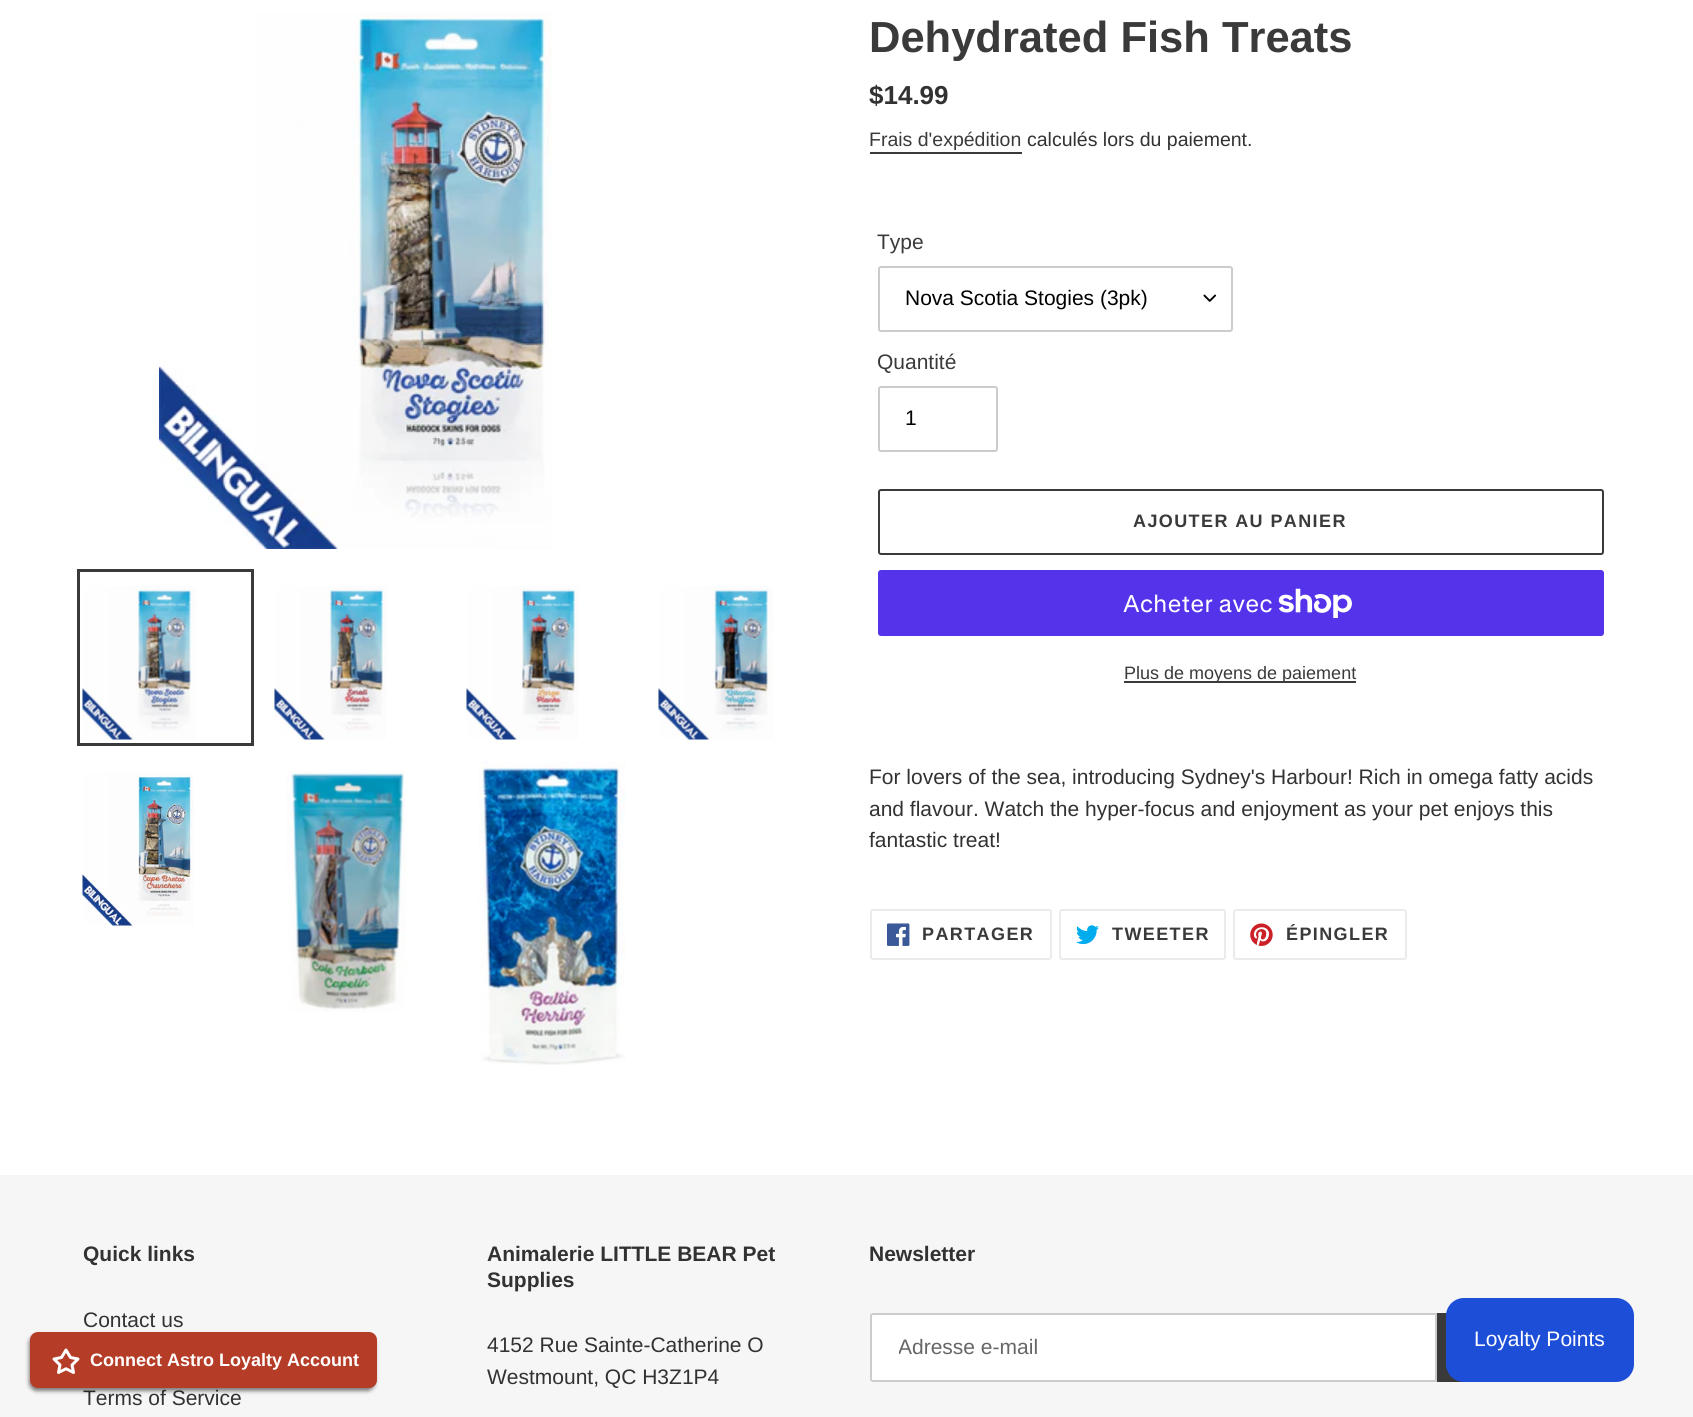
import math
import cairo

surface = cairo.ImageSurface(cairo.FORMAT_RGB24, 1693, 1417)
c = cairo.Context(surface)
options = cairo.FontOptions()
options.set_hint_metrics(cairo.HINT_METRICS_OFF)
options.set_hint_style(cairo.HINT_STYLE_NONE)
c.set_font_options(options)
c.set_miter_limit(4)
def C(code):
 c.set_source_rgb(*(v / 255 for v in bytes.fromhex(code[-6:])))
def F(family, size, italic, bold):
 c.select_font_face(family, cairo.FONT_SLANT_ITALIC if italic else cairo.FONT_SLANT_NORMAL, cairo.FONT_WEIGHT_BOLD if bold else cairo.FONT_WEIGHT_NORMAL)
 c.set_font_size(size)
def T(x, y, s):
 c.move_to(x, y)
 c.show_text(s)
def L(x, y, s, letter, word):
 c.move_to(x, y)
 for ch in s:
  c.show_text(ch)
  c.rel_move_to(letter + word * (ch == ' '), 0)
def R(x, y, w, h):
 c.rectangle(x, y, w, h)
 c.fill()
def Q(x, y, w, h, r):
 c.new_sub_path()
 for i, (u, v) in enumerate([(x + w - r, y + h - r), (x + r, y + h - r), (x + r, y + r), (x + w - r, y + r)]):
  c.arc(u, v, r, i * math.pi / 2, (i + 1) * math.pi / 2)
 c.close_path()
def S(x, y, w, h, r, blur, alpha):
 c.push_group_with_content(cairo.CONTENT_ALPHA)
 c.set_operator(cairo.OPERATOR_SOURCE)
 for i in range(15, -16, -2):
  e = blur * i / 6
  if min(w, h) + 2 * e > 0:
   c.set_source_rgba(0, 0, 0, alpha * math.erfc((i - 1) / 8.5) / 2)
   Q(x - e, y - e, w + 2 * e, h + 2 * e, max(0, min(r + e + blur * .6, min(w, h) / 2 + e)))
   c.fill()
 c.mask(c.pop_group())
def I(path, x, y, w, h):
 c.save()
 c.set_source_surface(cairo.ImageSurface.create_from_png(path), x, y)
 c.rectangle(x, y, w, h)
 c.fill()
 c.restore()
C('ffffff')
c.paint()
I('1.png',159,12,393,537)
c.rectangle(78.5,570.5,174,174)
C('3a3a3a')
c.set_line_width(3)
c.stroke()
I('2.png',82,586,114,154)
I('3.png',274,586,113,154)
I('4.png',466,586,113,154)
I('5.png',658,586,115,154)
I('6.png',82,772,112,154)
I('7.png',286,770,120,242)
I('8.png',478,761,148,304)
F('Liberation Sans',43.5,0,1)
T(869,52,'Dehydrated Fish Treats')
F('Liberation Sans',26,0,1)
C('333232')
T(869,104,'$14.99')
F('Liberation Sans',19.5,0,0)
C('3a3a3a')
T(869,146,'Frais d\'expédition')
R(870,152,152,2)
C('333232')
T(1027,146,'calculés lors du paiement.')
F('Liberation Sans',21,0,0)
C('3a3a3a')
T(877,249,'Type')
I('9.png',1203,294,14,8)
Q(879,267,353,64,2)
C('cccccc')
c.set_line_width(2)
c.stroke()
C('000000')
T(905,305,'Nova Scotia Stogies (3pk)')
C('3a3a3a')
T(877,369,'Quantité')
Q(879,387,118,64,2)
C('cccccc')
c.stroke()
C('000000')
T(905,425,'1')
Q(879,490,724,64,2)
C('3a3a3a')
c.stroke()
F('Liberation Sans',18,0,1)
L(1133,527,'AJOUTER AU PANIER',1.4,0)
C('5433eb')
Q(878,570,726,66,3)
c.fill()
F('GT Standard',24,0,0)
C('ffffff')
T(1123,612,'Acheter avec')
I('10.png',1278,588,74,30)
C('3a3a3a')
R(1124,681,232,2)
F('Liberation Sans',18,0,0)
T(1124,679,'Plus de moyens de paiement')
F('Liberation Sans',21,0,0)
C('333232')
T(869,784,'For lovers of the sea, introducing Sydney\'s Harbour! Rich in omega fatty acids')
T(869,816,'and flavour. Watch the hyper-focus and enjoyment as your pet enjoys this')
T(869,847,'fantastic treat!')
Q(871,910,180,49,2)
C('ebebeb')
c.stroke()
I('11.png',887,923,23,23)
F('Liberation Sans',18,0,1)
C('3a3a3a')
L(922,940,'PARTAGER',1.4,0)
Q(1060,910,165,49,2)
C('ebebeb')
c.stroke()
I('12.png',1076,925,23,20)
C('3a3a3a')
L(1112,940,'TWEETER',1.4,0)
Q(1234,910,172,49,2)
C('ebebeb')
c.stroke()
I('13.png',1250,923,23,23)
C('3a3a3a')
L(1286,940,'ÉPINGLER',1.4,0)
C('f6f6f6')
R(0,1175,1693,242)
F('Liberation Sans',21,0,1)
C('333232')
T(83,1261,'Quick links')
F('Liberation Sans',21,0,0)
T(83,1327,'Contact us')
T(83,1405,'Terms of Service')
F('Liberation Sans',21,0,1)
T(487,1261,'Animalerie LITTLE BEAR Pet')
T(487,1287,'Supplies')
F('Liberation Sans',21,0,0)
T(487,1352,'4152 Rue Sainte-Catherine O')
T(487,1384,'Westmount, QC H3Z1P4')
F('Liberation Sans',21,0,1)
T(869,1261,'Newsletter')
C('ffffff')
c.new_path()
c.move_to(873,1314)
c.line_to(1436,1314)
c.line_to(1436,1381)
c.line_to(873,1381)
c.curve_to(872,1381,871,1380,871,1379)
c.line_to(871,1316)
c.curve_to(871,1315,872,1314,873,1314)
c.close_path()
c.fill_preserve()
C('cccccc')
c.stroke()
c.save()
c.rectangle(899,1334,510,24)
c.clip()
F('Liberation Sans',21,0,0)
C('666666')
T(898,1354,'Adresse e-mail')
c.restore()
C('3a3a3a')
R(1437,1313,27,69)
C('1d4ed8')
Q(1446,1298,188,84,18)
c.fill()
F('Liberation Sans',21,0,0)
C('ffffff')
T(1474,1346,'Loyalty Points')
C('000000')
S(29,1335,346,56,8,2,.5)
C('b53c27')
Q(30,1332,347,56,8)
c.fill()
I('14.png',52,1348,28,26)
F('Liberation Sans',18,0,1)
C('ffffff')
T(90,1366,'Connect Astro Loyalty Account')
surface.write_to_png('o.png')
